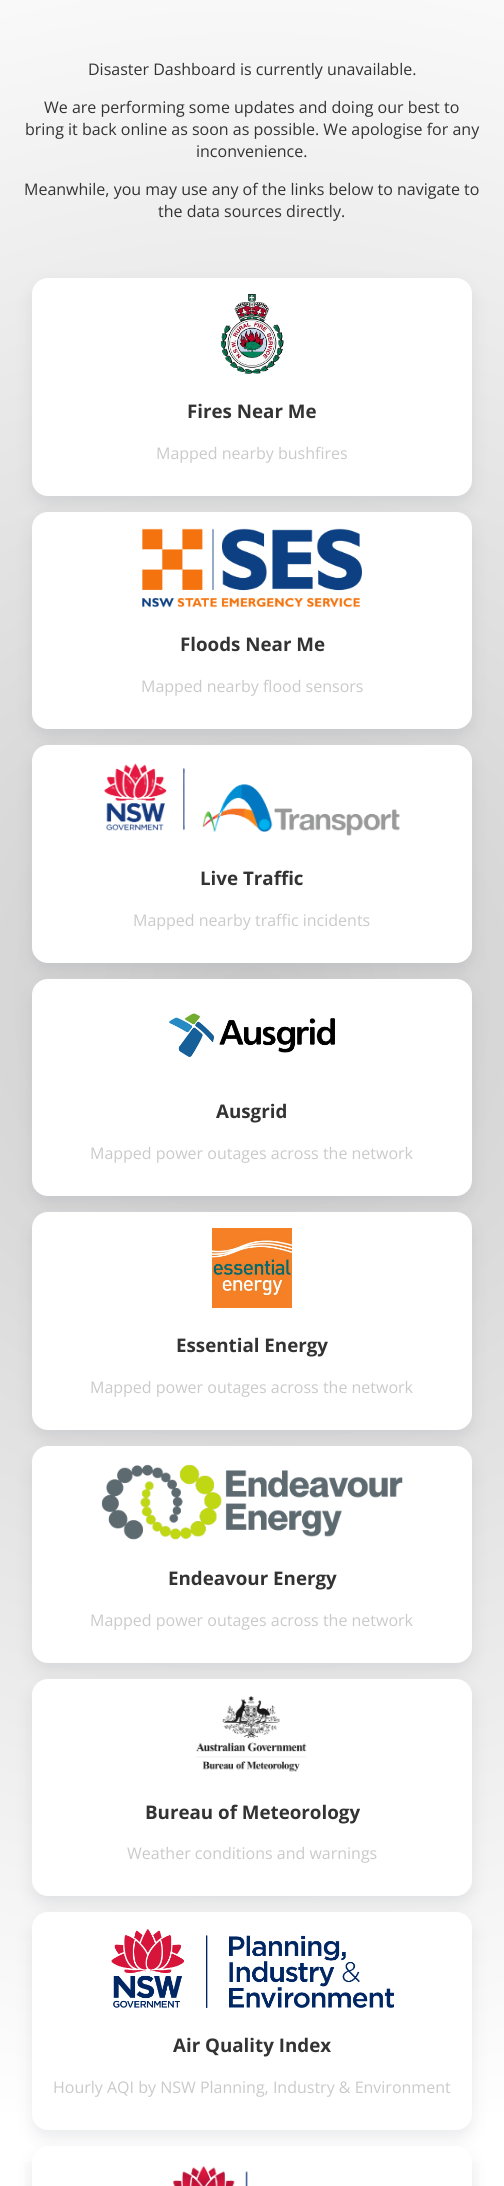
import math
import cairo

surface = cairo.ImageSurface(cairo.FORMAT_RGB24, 504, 2186)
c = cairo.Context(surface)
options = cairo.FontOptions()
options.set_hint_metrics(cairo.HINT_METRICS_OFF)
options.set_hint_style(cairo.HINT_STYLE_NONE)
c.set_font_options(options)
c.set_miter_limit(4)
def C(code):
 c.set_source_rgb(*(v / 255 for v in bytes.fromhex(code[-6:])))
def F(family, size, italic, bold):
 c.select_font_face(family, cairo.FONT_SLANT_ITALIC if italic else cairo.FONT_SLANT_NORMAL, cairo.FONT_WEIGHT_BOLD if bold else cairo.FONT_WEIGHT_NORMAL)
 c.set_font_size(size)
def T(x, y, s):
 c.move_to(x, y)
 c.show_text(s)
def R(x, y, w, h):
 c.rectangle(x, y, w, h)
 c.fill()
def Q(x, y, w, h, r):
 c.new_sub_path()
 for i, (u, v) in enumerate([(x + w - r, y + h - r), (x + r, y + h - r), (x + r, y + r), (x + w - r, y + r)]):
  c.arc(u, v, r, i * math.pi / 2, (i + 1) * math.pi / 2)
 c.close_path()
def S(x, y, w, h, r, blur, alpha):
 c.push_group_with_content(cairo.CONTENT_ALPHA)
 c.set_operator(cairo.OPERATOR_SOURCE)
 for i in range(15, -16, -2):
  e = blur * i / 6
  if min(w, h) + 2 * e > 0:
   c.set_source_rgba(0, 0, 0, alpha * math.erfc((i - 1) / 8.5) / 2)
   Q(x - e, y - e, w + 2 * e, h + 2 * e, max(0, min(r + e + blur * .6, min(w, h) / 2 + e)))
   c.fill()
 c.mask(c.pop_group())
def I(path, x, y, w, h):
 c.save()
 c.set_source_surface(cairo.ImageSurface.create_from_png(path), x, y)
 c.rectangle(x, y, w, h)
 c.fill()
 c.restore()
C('ffffff')
c.paint()
gradient = cairo.RadialGradient(252,1000,0,252,1000,1161)
gradient.add_color_stop_rgba(0,0.8,0.8,0.8,1)
gradient.add_color_stop_rgba(1,1,1,1,1)
c.set_source(gradient)
R(0,0,504,2112)
gradient = cairo.RadialGradient(252,3266,0,252,3266,1161)
gradient.add_color_stop_rgba(0,0.8,0.8,0.8,1)
gradient.add_color_stop_rgba(1,1,1,1,1)
c.set_source(gradient)
R(24,2162,456,24)
F('Open Sans',16,0,0)
C('333333')
T(88,75,'Disaster Dashboard is currently unavailable.')
T(44,113,'We are performing some updates and doing our best to')
T(25,135,'bring it back online as soon as possible. We apologise for any')
T(196,157,'inconvenience.')
T(24,195,'Meanwhile, you may use any of the links below to navigate to')
T(158,217,'the data sources directly.')
C('2c3349')
S(32,286,440,218,16,8,.1)
C('ffffff')
Q(32,278,440,218,16)
c.fill()
I('1.png',220,294,64,80)
F('Open Sans',18.75,0,1)
C('333333')
T(187,418,'Fires Near Me')
F('Open Sans',16,0,0)
C('cacaca')
T(156,459,'Mapped nearby bushfires')
C('2c3349')
S(32,520,440,217,16,8,.1)
C('ffffff')
Q(32,512,440,217,16)
c.fill()
I('2.png',142,528,220,80)
F('Open Sans',18.75,0,1)
C('333333')
T(180,651,'Floods Near Me')
F('Open Sans',16,0,0)
C('cacaca')
T(141,692,'Mapped nearby flood sensors')
C('2c3349')
S(32,753,440,218,16,8,.1)
C('ffffff')
Q(32,745,440,218,16)
c.fill()
I('3.png',104,763,296,73)
F('Open Sans',18.75,0,1)
C('333333')
T(200,885,'Live Traffic')
F('Open Sans',16,0,0)
C('cacaca')
T(133,926,'Mapped nearby traffic incidents')
C('2c3349')
S(32,987,440,217,16,8,.1)
C('ffffff')
Q(32,979,440,217,16)
c.fill()
I('4.png',169,1013,166,44)
F('Open Sans',18.75,0,1)
C('333333')
T(216,1118,'Ausgrid')
F('Open Sans',16,0,0)
C('cacaca')
T(90,1159,'Mapped power outages across the network')
C('2c3349')
S(32,1220,440,218,16,8,.1)
C('ffffff')
Q(32,1212,440,218,16)
c.fill()
I('5.png',212,1228,80,80)
F('Open Sans',18.75,0,1)
C('333333')
T(176,1352,'Essential Energy')
F('Open Sans',16,0,0)
C('cacaca')
T(90,1393,'Mapped power outages across the network')
C('2c3349')
S(32,1454,440,217,16,8,.1)
C('ffffff')
Q(32,1446,440,217,16)
c.fill()
I('6.png',101,1464,302,76)
F('Open Sans',18.75,0,1)
C('333333')
T(168,1585,'Endeavour Energy')
F('Open Sans',16,0,0)
C('cacaca')
T(90,1626,'Mapped power outages across the network')
C('2c3349')
S(32,1687,440,217,16,8,.1)
C('ffffff')
Q(32,1679,440,217,16)
c.fill()
I('7.png',196,1696,111,76)
F('Open Sans',18.75,0,1)
C('333333')
T(145,1819,'Bureau of Meteorology')
F('Open Sans',16,0,0)
C('cacaca')
T(127,1859,'Weather conditions and warnings')
C('2c3349')
S(32,1920,440,218,16,8,.1)
C('ffffff')
Q(32,1912,440,218,16)
c.fill()
I('8.png',111,1929,283,79)
F('Open Sans',18.75,0,1)
C('333333')
T(173,2052,'Air Quality Index')
F('Open Sans',16,0,0)
C('cacaca')
T(53,2093,'Hourly AQI by NSW Planning, Industry & Environment')
C('2c3349')
S(32,2154,440,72,16,8,.1)
C('ffffff')
Q(32,2146,440,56,16)
c.fill()
I('9.png',173,2165,75,21)
surface.write_to_png('o.png')
